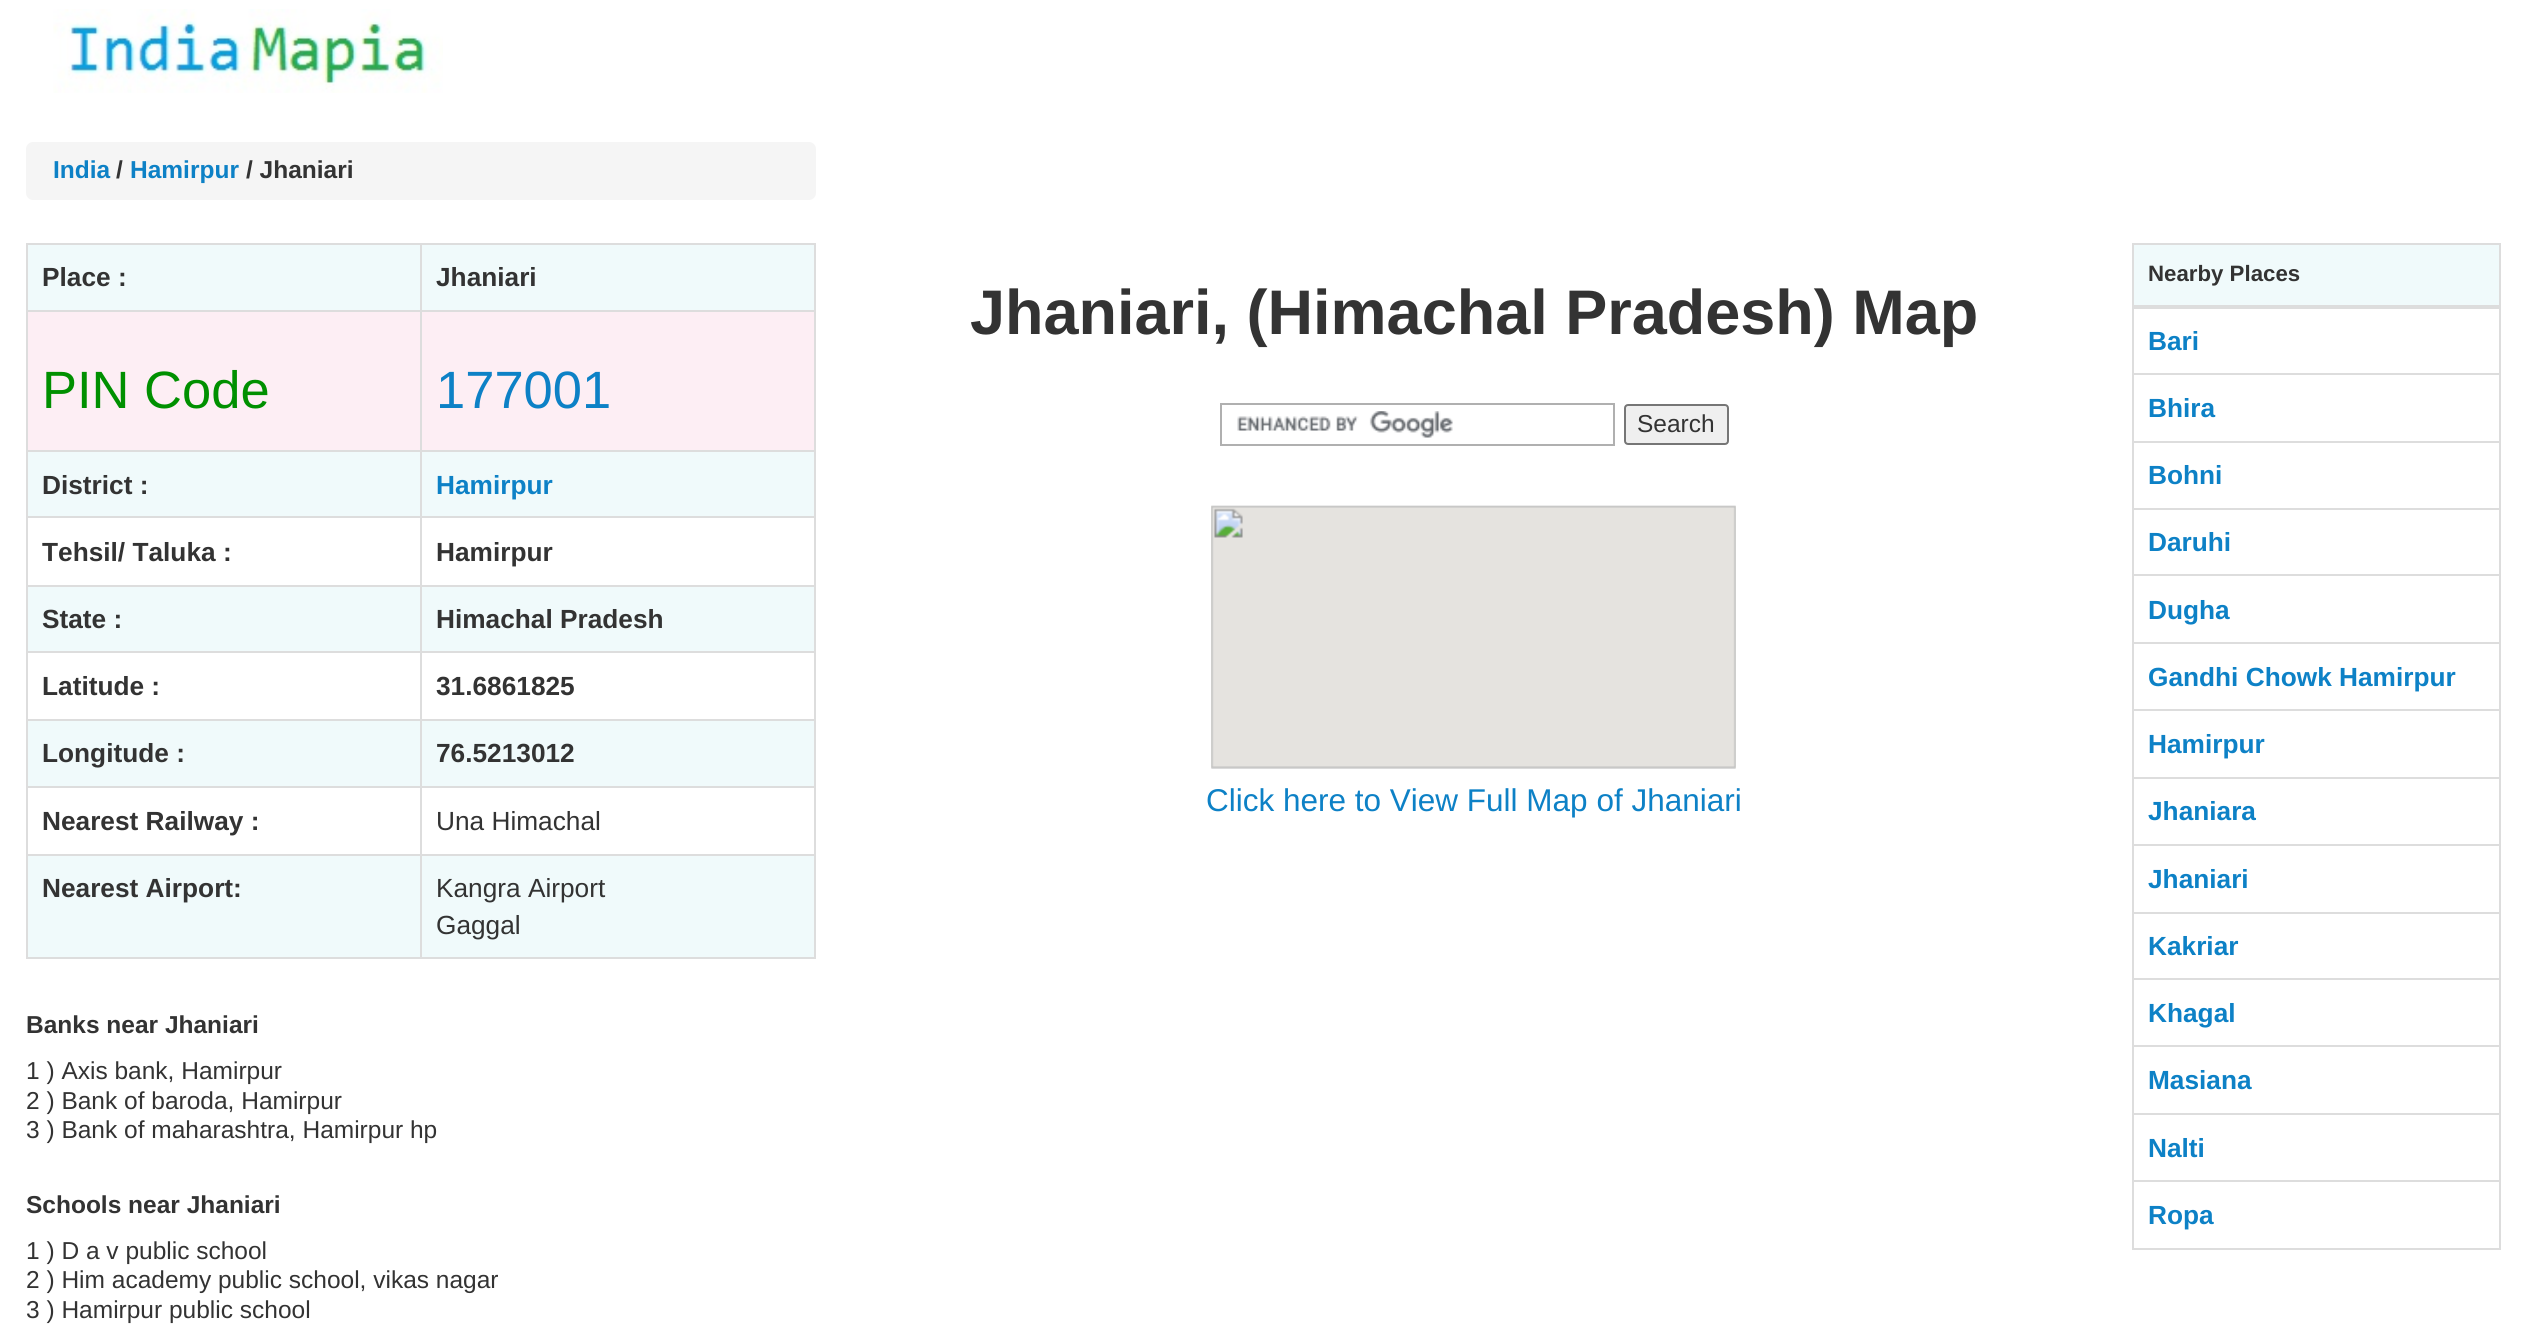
import math
import cairo

surface = cairo.ImageSurface(cairo.FORMAT_RGB24, 2526, 1336)
c = cairo.Context(surface)
options = cairo.FontOptions()
options.set_hint_metrics(cairo.HINT_METRICS_OFF)
options.set_hint_style(cairo.HINT_STYLE_NONE)
c.set_font_options(options)
c.set_miter_limit(4)
def C(code):
 c.set_source_rgb(*(v / 255 for v in bytes.fromhex(code[-6:])))
def F(family, size, italic, bold):
 c.select_font_face(family, cairo.FONT_SLANT_ITALIC if italic else cairo.FONT_SLANT_NORMAL, cairo.FONT_WEIGHT_BOLD if bold else cairo.FONT_WEIGHT_NORMAL)
 c.set_font_size(size)
def T(x, y, s):
 c.move_to(x, y)
 c.show_text(s)
def R(x, y, w, h):
 c.rectangle(x, y, w, h)
 c.fill()
def Q(x, y, w, h, r):
 c.new_sub_path()
 for i, (u, v) in enumerate([(x + w - r, y + h - r), (x + r, y + h - r), (x + r, y + r), (x + w - r, y + r)]):
  c.arc(u, v, r, i * math.pi / 2, (i + 1) * math.pi / 2)
 c.close_path()
def I(path, x, y, w, h):
 c.save()
 c.set_source_surface(cairo.ImageSurface.create_from_png(path), x, y)
 c.rectangle(x, y, w, h)
 c.fill()
 c.restore()
C('ffffff')
c.paint()
I('1.png',53,9,390,84)
C('f5f5f5')
Q(26,142,790,58,7)
c.fill()
F('Liberation Sans',24.5,0,1)
C('0d81c6')
T(53,178,'India')
C('333333')
T(116,178,'/')
C('0d81c6')
T(130,178,'Hamirpur')
C('333333')
T(246,178,'/ Jhaniari')
C('dddddd')
R(26,243,790,2)
R(814,243,2,716)
R(26,957,790,2)
R(26,243,2,716)
C('f0fafb')
R(28,245,786,65)
F('Liberation Sans',26.25,0,1)
C('333333')
T(42,286,'Place :')
C('dddddd')
R(420,310,396,2)
R(420,450,396,2)
C('f0fafb')
R(28,452,786,64)
C('dddddd')
R(420,516,396,2)
R(420,585,396,2)
C('f0fafb')
R(28,587,786,64)
C('dddddd')
R(420,651,396,2)
R(420,719,396,2)
C('f0fafb')
R(28,721,786,65)
C('dddddd')
R(420,786,396,2)
R(420,854,396,2)
C('f0fafb')
R(28,856,786,101)
C('dddddd')
R(420,854,2,105)
R(26,854,396,2)
R(420,786,2,70)
R(26,786,396,2)
R(420,719,2,69)
R(26,719,396,2)
R(420,651,2,70)
R(26,651,396,2)
R(420,585,2,68)
R(26,585,396,2)
R(420,516,2,70)
R(26,516,396,2)
R(420,450,2,68)
R(26,450,396,2)
R(420,310,2,142)
R(26,310,396,2)
R(420,243,2,69)
C('333333')
T(436,286,'Jhaniari')
C('fdeef4')
R(28,312,392,138)
F('Liberation Sans',52.5,0,0)
C('009000')
T(42,408,'PIN Code')
C('fdeef4')
R(422,312,392,138)
C('0d81c6')
T(436,408,'177001')
F('Liberation Sans',26.25,0,1)
C('333333')
T(42,494,'District :')
C('0d81c6')
T(436,494,'Hamirpur')
C('333333')
T(42,561,'Tehsil/ Taluka :')
T(436,561,'Hamirpur')
T(42,628,'State :')
T(436,628,'Himachal Pradesh')
T(42,695,'Latitude :')
T(436,695,'31.6861825')
T(42,762,'Longitude :')
T(436,762,'76.5213012')
T(42,830,'Nearest Railway :')
F('Liberation Sans',26.25,0,0)
T(436,830,'Una Himachal')
F('Liberation Sans',26.25,0,1)
T(42,897,'Nearest Airport:')
F('Liberation Sans',26.25,0,0)
T(436,897,'Kangra Airport')
T(436,934,'Gaggal')
F('Liberation Sans',24.5,0,1)
T(26,1033,'Banks near Jhaniari')
F('Liberation Sans',24.5,0,0)
T(26,1079,'1 ) Axis bank, Hamirpur')
T(26,1109,'2 ) Bank of baroda, Hamirpur')
T(26,1138,'3 ) Bank of maharashtra, Hamirpur hp')
F('Liberation Sans',24.5,0,1)
T(26,1213,'Schools near Jhaniari')
F('Liberation Sans',24.5,0,0)
T(26,1259,'1 ) D a v public school')
T(26,1288,'2 ) Him academy public school, vikas nagar')
T(26,1318,'3 ) Hamirpur public school')
F('Liberation Sans',63,0,1)
T(970,334,'Jhaniari, (Himachal Pradesh) Map')
I('2.png',1237,411,216,27)
c.rectangle(1221,404,393,41)
C('b0b0b0')
c.stroke()
C('efefef')
Q(1625,405,103,39,3)
c.fill_preserve()
C('767676')
c.stroke()
F('Liberation Sans',24.5,0,0)
C('333333')
T(1637,432,'Search')
I('3.png',1211,505,525,264)
F('Liberation Sans',31.5,0,0)
C('0d81c6')
T(1206,811,'Click here to View Full Map of Jhaniari')
C('dddddd')
R(2132,243,369,2)
R(2499,243,2,1007)
R(2132,1248,369,2)
R(2132,243,2,1007)
C('f0fafb')
R(2134,245,365,60)
C('dddddd')
R(2132,305,369,4)
F('Liberation Sans',22.25,0,1)
C('333333')
T(2148,281,'Nearby Places')
F('Liberation Sans',26.25,0,1)
C('0d81c6')
T(2148,350,'Bari')
C('dddddd')
R(2132,373,369,2)
C('0d81c6')
T(2148,417,'Bhira')
C('dddddd')
R(2132,441,369,2)
C('0d81c6')
T(2148,484,'Bohni')
C('dddddd')
R(2132,508,369,2)
C('0d81c6')
T(2148,551,'Daruhi')
C('dddddd')
R(2132,574,369,2)
C('0d81c6')
T(2148,619,'Dugha')
C('dddddd')
R(2132,642,369,2)
C('0d81c6')
T(2148,686,'Gandhi Chowk Hamirpur')
C('dddddd')
R(2132,709,369,2)
C('0d81c6')
T(2148,753,'Hamirpur')
C('dddddd')
R(2132,777,369,2)
C('0d81c6')
T(2148,820,'Jhaniara')
C('dddddd')
R(2132,844,369,2)
C('0d81c6')
T(2148,888,'Jhaniari')
C('dddddd')
R(2132,912,369,2)
C('0d81c6')
T(2148,955,'Kakriar')
C('dddddd')
R(2132,978,369,2)
C('0d81c6')
T(2148,1022,'Khagal')
C('dddddd')
R(2132,1045,369,2)
C('0d81c6')
T(2148,1089,'Masiana')
C('dddddd')
R(2132,1113,369,2)
C('0d81c6')
T(2148,1157,'Nalti')
C('dddddd')
R(2132,1180,369,2)
C('0d81c6')
T(2148,1224,'Ropa')
surface.write_to_png('o.png')
